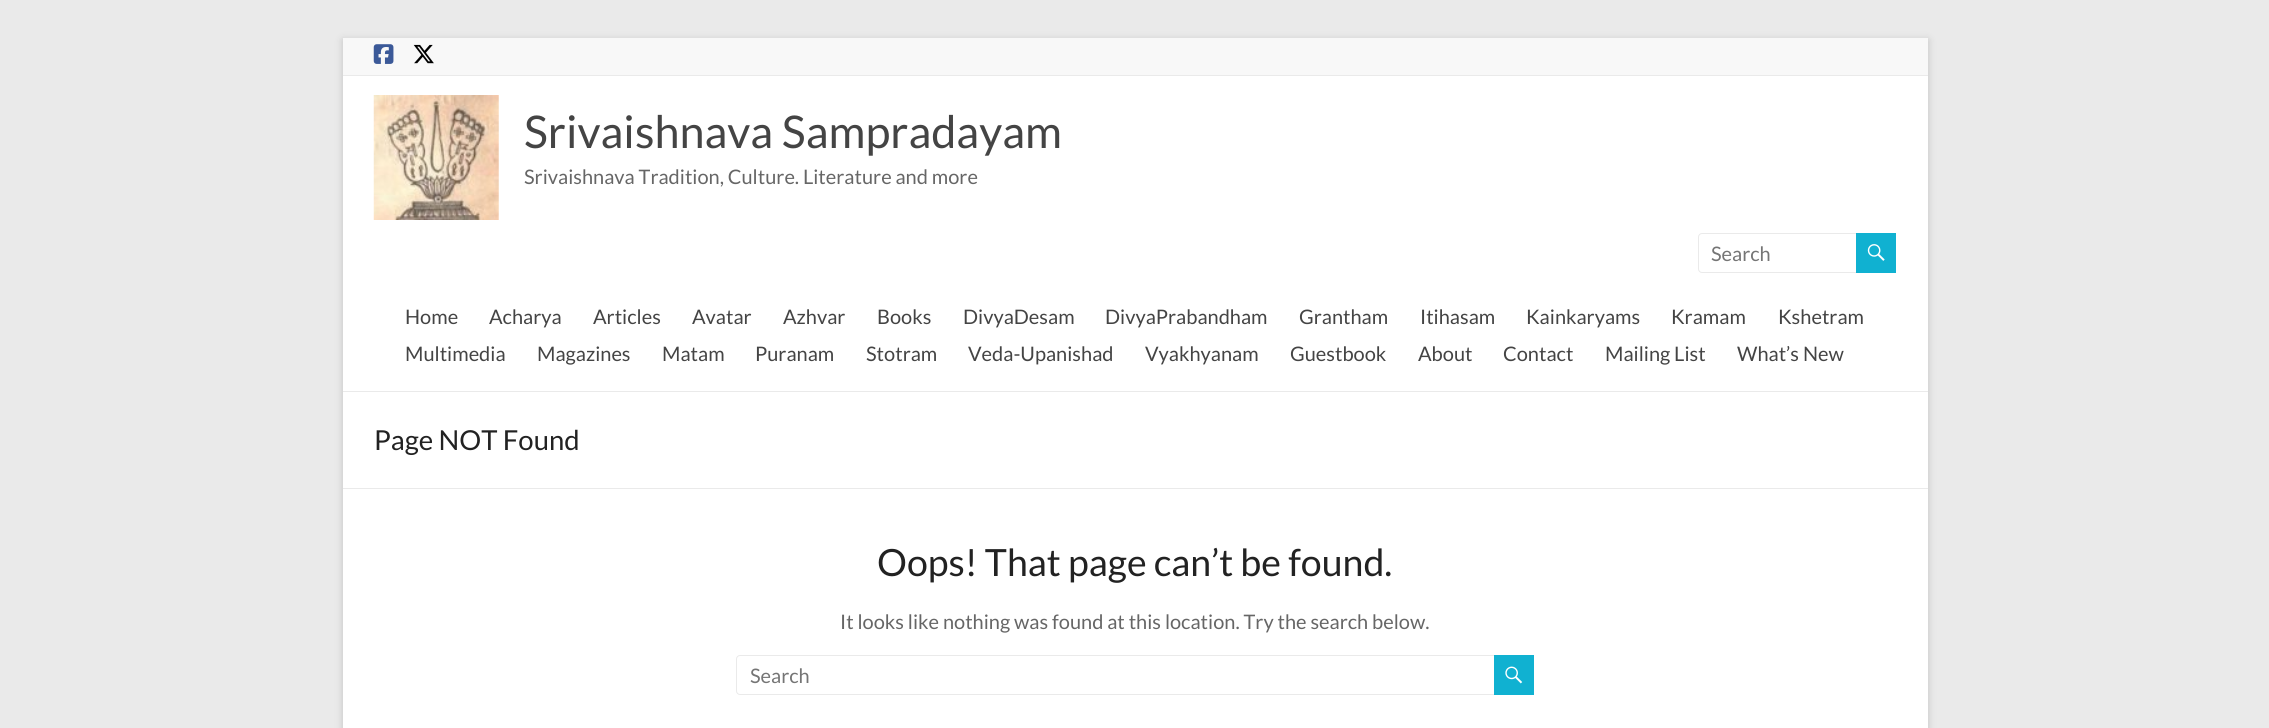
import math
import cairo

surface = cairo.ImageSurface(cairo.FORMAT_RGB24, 2269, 728)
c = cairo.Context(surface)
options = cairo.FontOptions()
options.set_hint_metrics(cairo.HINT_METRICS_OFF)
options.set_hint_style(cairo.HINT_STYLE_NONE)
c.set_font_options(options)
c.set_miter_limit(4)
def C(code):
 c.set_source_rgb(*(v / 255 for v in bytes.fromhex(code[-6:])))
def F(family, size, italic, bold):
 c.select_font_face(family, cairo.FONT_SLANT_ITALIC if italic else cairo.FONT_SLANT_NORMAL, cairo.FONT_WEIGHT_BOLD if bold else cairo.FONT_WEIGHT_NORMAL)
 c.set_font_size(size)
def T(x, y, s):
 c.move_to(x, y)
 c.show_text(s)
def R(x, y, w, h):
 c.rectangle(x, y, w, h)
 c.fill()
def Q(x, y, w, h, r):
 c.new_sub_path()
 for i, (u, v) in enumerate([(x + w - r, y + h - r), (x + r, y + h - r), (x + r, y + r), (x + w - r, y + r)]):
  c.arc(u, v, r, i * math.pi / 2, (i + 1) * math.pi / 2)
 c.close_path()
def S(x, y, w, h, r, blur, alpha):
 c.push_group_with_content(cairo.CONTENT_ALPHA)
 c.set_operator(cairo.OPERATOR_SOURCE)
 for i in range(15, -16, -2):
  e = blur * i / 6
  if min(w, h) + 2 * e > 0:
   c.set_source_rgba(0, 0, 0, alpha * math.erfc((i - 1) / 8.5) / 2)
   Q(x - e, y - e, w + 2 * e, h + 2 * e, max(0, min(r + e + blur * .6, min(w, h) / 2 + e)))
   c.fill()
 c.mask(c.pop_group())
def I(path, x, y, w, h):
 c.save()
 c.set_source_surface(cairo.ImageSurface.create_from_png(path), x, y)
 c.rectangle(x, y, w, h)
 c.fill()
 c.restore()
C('eaeaea')
c.paint()
C('646464')
S(343,40,1585,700,0,4,.3)
C('ffffff')
R(343,76,1585,652)
C('f8f8f8')
R(343,38,1585,37)
C('eaeaea')
R(343,75,1585,1)
I('1.png',373,44,21,20)
I('2.png',413,44,21,20)
R(343,391,1585,1)
I('3.png',373,95,126,125)
F('Lato',45,0,0)
C('444444')
T(524,148,'Srivaishnava Sampradayam')
F('Lato',20,0,0)
C('666666')
T(524,184,'Srivaishnava Tradition, Culture. Literature and more')
Q(1698.5,233.5,161,39,3.5)
C('eaeaea')
c.set_line_width(1)
c.stroke()
C('757575')
T(1711,261,'Search')
C('10b1d1')
R(1856,233,40,40)
I('4.png',1867,244,18,17)
C('444444')
T(405,324,'Home')
T(489,324,'Acharya')
T(593,324,'Articles')
T(692,324,'Avatar')
T(783,324,'Azhvar')
T(877,324,'Books')
T(963,324,'DivyaDesam')
T(1105,324,'DivyaPrabandham')
T(1299,324,'Grantham')
T(1420,324,'Itihasam')
T(1526,324,'Kainkaryams')
T(1671,324,'Kramam')
T(1778,324,'Kshetram')
T(405,361,'Multimedia')
T(537,361,'Magazines')
T(662,361,'Matam')
T(755,361,'Puranam')
T(866,361,'Stotram')
T(968,361,'Veda-Upanishad')
T(1145,361,'Vyakhyanam')
T(1290,361,'Guestbook')
T(1418,361,'About')
T(1503,361,'Contact')
T(1605,361,'Mailing List')
T(1737,361,'What’s New')
C('eaeaea')
R(343,488,1585,1)
F('Lato',27.5,0,0)
C('222222')
T(374,450,'Page NOT Found')
F('Lato',37.5,0,0)
T(877,576,'Oops! That page can’t be found.')
F('Lato',20,0,0)
C('666666')
T(840,629,'It looks like nothing was found at this location. Try the search below.')
Q(736.5,655.5,761,39,3.5)
C('eaeaea')
c.stroke()
C('757575')
T(750,683,'Search')
C('10b1d1')
R(1494,655,40,40)
I('5.png',1505,666,18,18)
surface.write_to_png('o.png')
